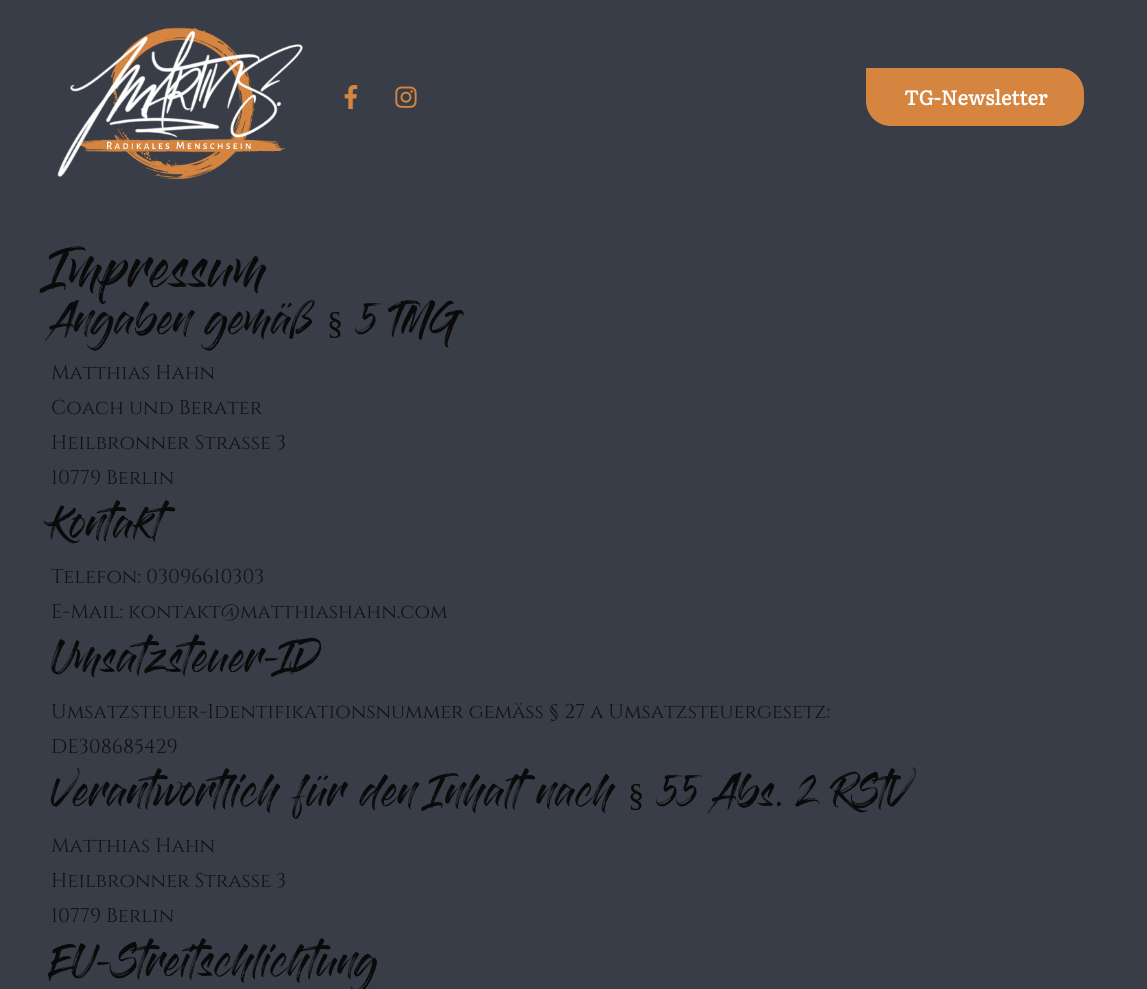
import math
import cairo

surface = cairo.ImageSurface(cairo.FORMAT_RGB24, 1147, 989)
c = cairo.Context(surface)
options = cairo.FontOptions()
options.set_hint_metrics(cairo.HINT_METRICS_OFF)
options.set_hint_style(cairo.HINT_STYLE_NONE)
c.set_font_options(options)
c.set_miter_limit(4)
def C(code):
 c.set_source_rgb(*(v / 255 for v in bytes.fromhex(code[-6:])))
def F(family, size, italic, bold):
 c.select_font_face(family, cairo.FONT_SLANT_ITALIC if italic else cairo.FONT_SLANT_NORMAL, cairo.FONT_WEIGHT_BOLD if bold else cairo.FONT_WEIGHT_NORMAL)
 c.set_font_size(size)
def T(x, y, s):
 c.move_to(x, y)
 c.show_text(s)
def I(path, x, y, w, h):
 c.save()
 c.set_source_surface(cairo.ImageSurface.create_from_png(path), x, y)
 c.rectangle(x, y, w, h)
 c.fill()
 c.restore()
C('383d47')
c.paint()
I('1.png',57,27,246,153)
I('2.png',344,85,14,24)
I('3.png',395,86,22,22)
C('d5853f')
c.new_path()
c.move_to(866,68)
c.line_to(1059,68)
c.curve_to(1073,68,1084,79,1084,93)
c.line_to(1084,101)
c.curve_to(1084,115,1073,126,1059,126)
c.line_to(891,126)
c.curve_to(877,126,866,115,866,101)
c.close_path()
c.fill()
F('Literata',20,0,1)
C('ffffff')
T(904,105,'TG-Newsletter')
F('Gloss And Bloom',40,0,0)
C('0a0a0a')
T(51,287,'Impressum')
F('Gloss And Bloom',32.5,0,0)
T(51,334,'Angaben gemäß')
F('Liberation Serif',32.5,0,0)
T(327,334,'§')
F('Gloss And Bloom',32.5,0,0)
T(358,334,'5 TMG')
F('Cinzel',20,0,0)
C('111213')
T(51,379,'Matthias Hahn')
T(51,414,'Coach und Berater')
T(51,449,'Heilbronner Straße 3')
T(51,484,'10779 Berlin')
F('Gloss And Bloom',32.5,0,0)
C('0a0a0a')
T(51,538,'Kontakt')
F('Cinzel',20,0,0)
C('111213')
T(51,583,'Telefon: 03096610303')
T(51,618,'E-Mail: kontakt@matthiashahn.com')
F('Gloss And Bloom',32.5,0,0)
C('0a0a0a')
T(51,672,'Umsatzsteuer-ID')
F('Cinzel',20,0,0)
C('111213')
T(51,718,'Umsatzsteuer-Identifikationsnummer gemäß § 27 a Umsatzsteuergesetz:')
T(51,753,'DE308685429')
F('Gloss And Bloom',32.5,0,0)
C('0a0a0a')
T(51,806,'Verantwortlich für den Inhalt nach')
F('Liberation Serif',32.5,0,0)
T(628,806,'§')
F('Gloss And Bloom',32.5,0,0)
T(659,806,'55 Abs. 2 RStV')
F('Cinzel',20,0,0)
C('111213')
T(51,852,'Matthias Hahn')
T(51,887,'Heilbronner Straße 3')
T(51,922,'10779 Berlin')
F('Gloss And Bloom',32.5,0,0)
C('0a0a0a')
T(51,976,'EU-Streitschlichtung')
surface.write_to_png('o.png')
